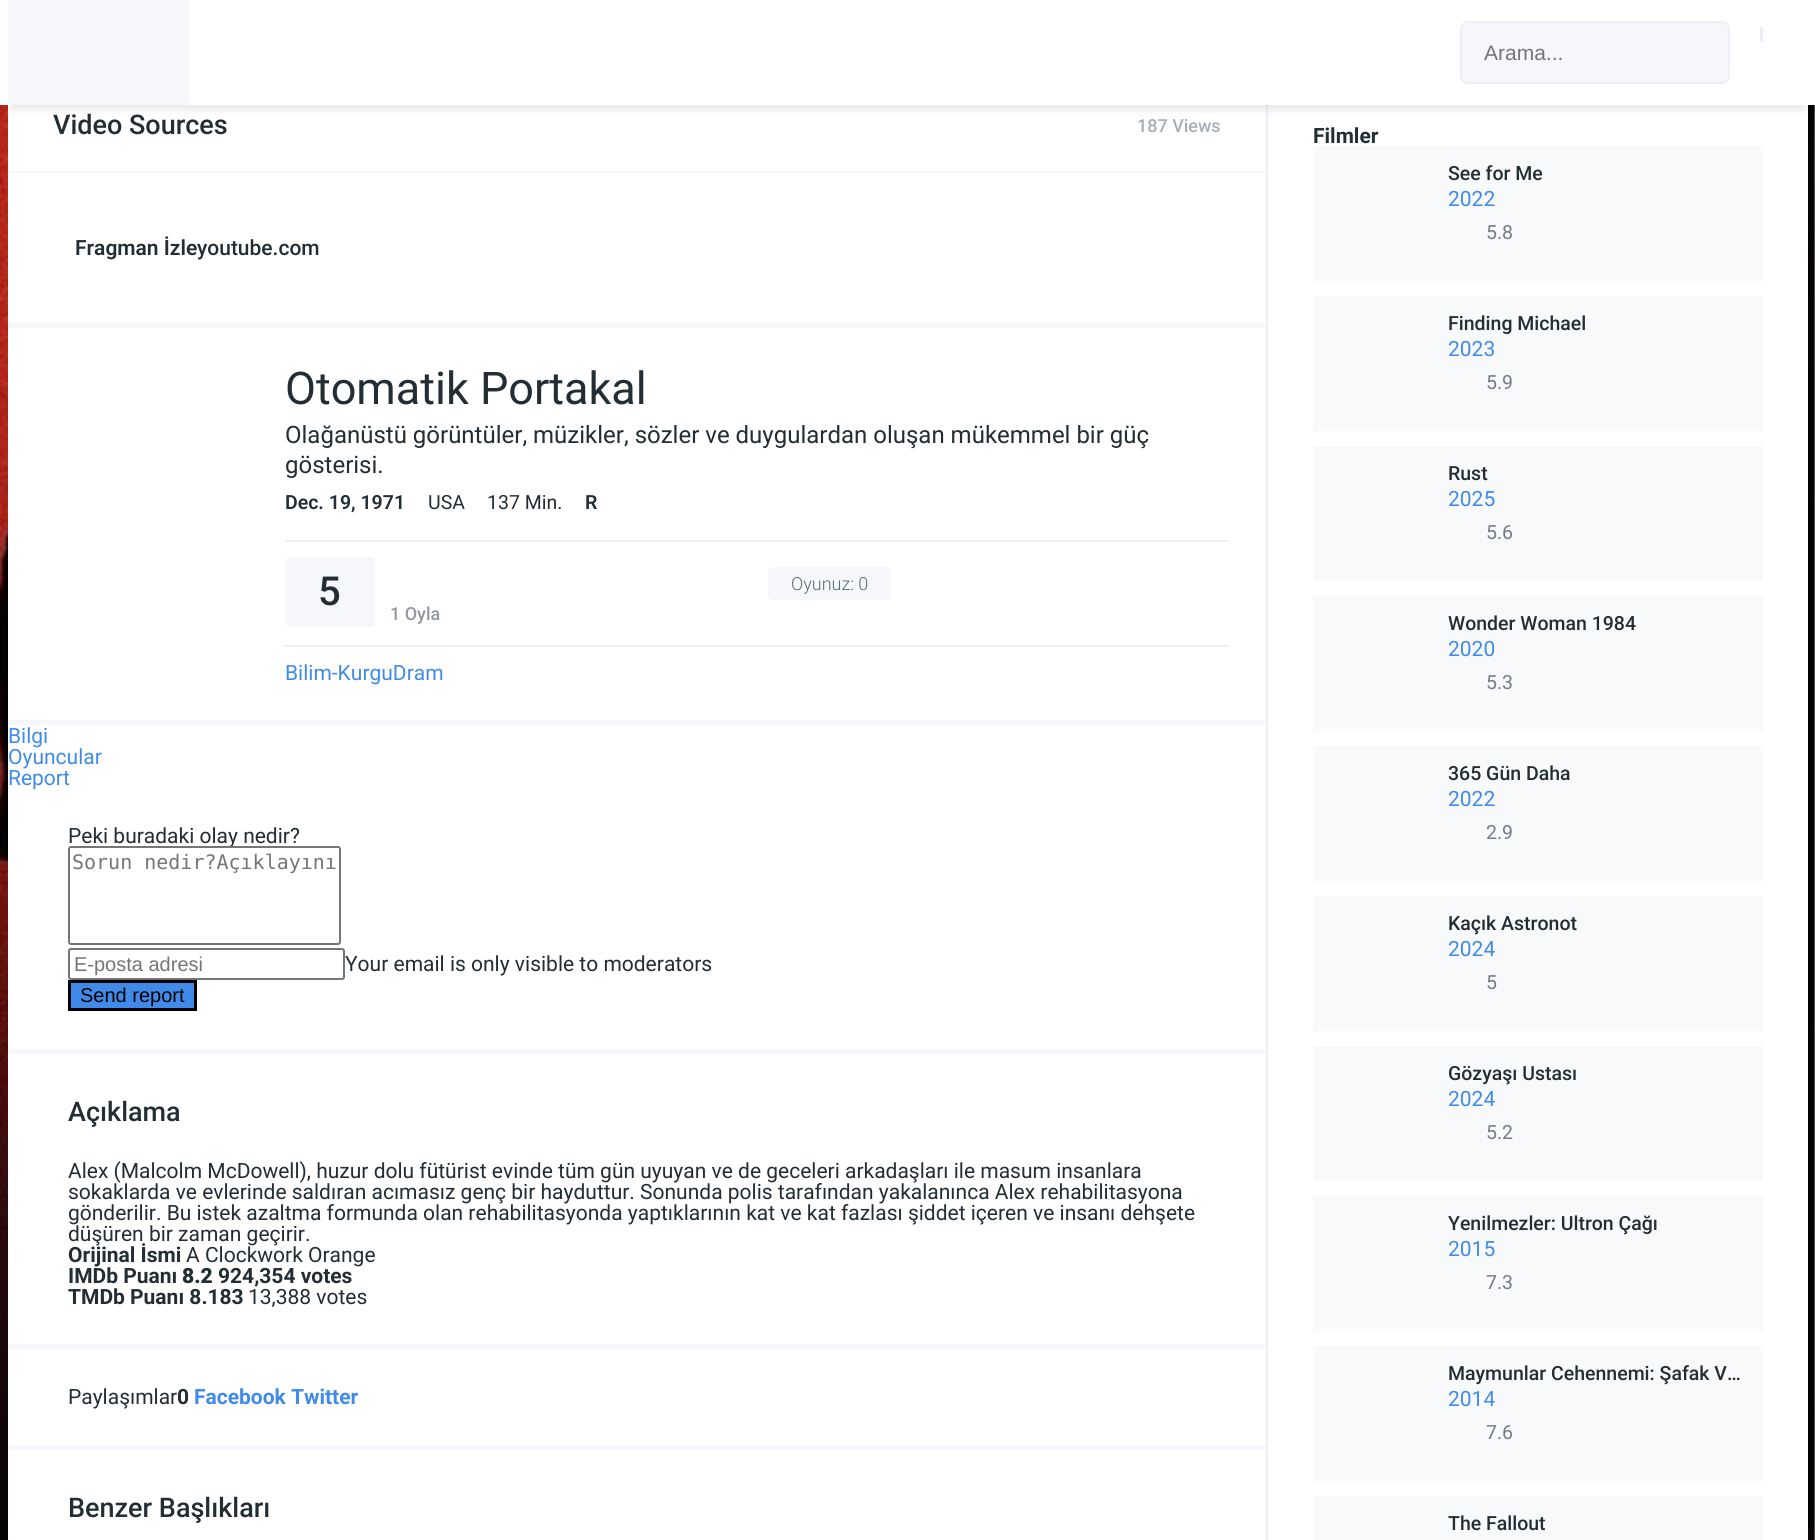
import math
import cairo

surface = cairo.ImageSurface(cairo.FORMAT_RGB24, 1815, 1540)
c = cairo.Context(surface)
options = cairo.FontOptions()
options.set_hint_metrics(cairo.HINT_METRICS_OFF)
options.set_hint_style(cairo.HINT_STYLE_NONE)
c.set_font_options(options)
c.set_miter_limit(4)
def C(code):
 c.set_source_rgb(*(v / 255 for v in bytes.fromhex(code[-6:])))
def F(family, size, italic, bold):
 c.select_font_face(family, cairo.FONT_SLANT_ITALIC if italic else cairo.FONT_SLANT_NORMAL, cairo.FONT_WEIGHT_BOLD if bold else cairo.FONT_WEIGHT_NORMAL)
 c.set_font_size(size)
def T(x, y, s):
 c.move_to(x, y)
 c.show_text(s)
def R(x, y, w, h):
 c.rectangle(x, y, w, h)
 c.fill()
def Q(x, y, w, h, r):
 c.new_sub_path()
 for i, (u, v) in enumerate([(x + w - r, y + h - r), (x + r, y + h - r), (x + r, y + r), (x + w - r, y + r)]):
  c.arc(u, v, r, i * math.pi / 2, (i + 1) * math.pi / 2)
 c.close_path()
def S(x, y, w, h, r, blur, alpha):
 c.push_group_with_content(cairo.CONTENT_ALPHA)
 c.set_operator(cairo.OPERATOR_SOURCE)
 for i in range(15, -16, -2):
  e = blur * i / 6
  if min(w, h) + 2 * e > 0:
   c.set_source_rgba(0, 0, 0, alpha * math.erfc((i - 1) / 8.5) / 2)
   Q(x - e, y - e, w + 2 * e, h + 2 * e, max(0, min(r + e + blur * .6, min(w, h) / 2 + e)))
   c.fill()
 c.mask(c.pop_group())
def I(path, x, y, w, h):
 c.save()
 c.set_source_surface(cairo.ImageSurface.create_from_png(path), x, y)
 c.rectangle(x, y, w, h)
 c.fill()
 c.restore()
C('f5f7fa')
c.paint()
I('1.png',0,105,1815,1435)
C('ffffff')
R(8,105,1800,1435)
C('eceff5')
R(1266,105,2,1435)
C('000000')
S(11,26,1794,84,0,4,.09)
C('ffffff')
R(0,0,1815,105)
C('f5f7fa')
R(8,0,181,105)
C('eceff5')
R(1760,27,3,15)
C('f5f7fa')
Q(1461,22,268,61,7)
c.fill_preserve()
C('eceff5')
c.stroke()
F('Liberation Sans',21,0,0)
C('757575')
T(1484,60,'Arama...')
C('f5f7fa')
R(8,323,1258,5)
R(8,171,1258,2)
F('Roboto Medium',27,0,0)
C('222d34')
T(53,134,'Video Sources')
F('Roboto Medium',18,0,0)
C('a7aeb9')
T(1137,132,'187 Views')
F('Roboto SemiBold',21,0,0)
C('222d34')
T(75,255,'Fragman İzle')
F('Roboto Medium',21,0,0)
T(197,255,'youtube.com')
C('f5f7fa')
R(8,720,1258,5)
F('Roboto',45,0,0)
C('222d34')
T(285,404,'Otomatik Portakal')
F('Roboto',24,0,0)
T(285,443,'Olağanüstü görüntüler, müzikler, sözler ve duygulardan oluşan mükemmel bir güç')
T(285,473,'gösterisi.')
F('Roboto SemiBold',19.5,0,0)
T(285,509,'Dec. 19, 1971')
F('Roboto',19.5,0,0)
T(428,509,'USA')
T(487,509,'137 Min.')
F('Roboto SemiBold',19.5,0,0)
T(585,509,'R')
C('eceff5')
R(285,540,944,2)
R(285,645,944,2)
C('f5f7fa')
Q(285,557,90,70,5)
c.fill()
F('Roboto Medium',40,0,0)
C('222d34')
T(318,605,'5')
F('Roboto Medium',18,0,0)
C('9297a2')
T(390,620,'1 Oyla')
C('f5f7fa')
Q(768,567,123,33,5)
c.fill()
F('Roboto Light',18,0,0)
C('586c7d')
T(791,590,'Oyunuz: 0')
F('Roboto',21,0,0)
C('408bea')
T(285,680,'Bilim-KurguDram')
T(8,743,'Bilgi')
T(8,764,'Oyuncular')
T(8,785,'Report')
C('f5f7fa')
R(8,1049,1258,5)
C('222d34')
T(68,843,'Peki buradaki olay nedir?')
C('ffffff')
Q(69,847,271,97,2)
c.fill_preserve()
C('767676')
c.stroke()
F('DejaVu Sans Mono',20,0,0)
C('757575')
T(72,869,'Sorun nedir?Açıklayını')
Q(69,949,275,30,2)
C('767676')
c.stroke()
F('Liberation Sans',20,0,0)
C('757575')
T(74,971,'E-posta adresi')
F('Roboto',21,0,0)
C('222d34')
T(345,971,'Your email is only visible to moderators')
C('408bea')
c.rectangle(69.5,981.5,126,28)
c.fill_preserve()
C('000000')
c.set_line_width(3)
c.stroke()
F('Liberation Sans',20,0,0)
T(80,1002,'Send report')
C('f5f7fa')
R(8,1344,1258,5)
F('Roboto Medium',27,0,0)
C('222d34')
T(68,1121,'Açıklama')
F('Roboto',21,0,0)
T(68,1178,'Alex (Malcolm McDowell), huzur dolu fütürist evinde tüm gün uyuyan ve de geceleri arkadaşları ile masum insanlara')
T(68,1199,'sokaklarda ve evlerinde saldıran acımasız genç bir hayduttur. Sonunda polis tarafından yakalanınca Alex rehabilitasyona')
T(68,1220,'gönderilir. Bu istek azaltma formunda olan rehabilitasyonda yaptıklarının kat ve kat fazlası şiddet içeren ve insanı dehşete')
T(68,1241,'düşüren bir zaman geçirir.')
F('Roboto',21,0,1)
T(68,1262,'Orijinal İsmi')
F('Roboto',21,0,0)
T(186,1262,'A Clockwork Orange')
F('Roboto',21,0,1)
T(68,1283,'IMDb Puanı')
F('Roboto Black',21,0,0)
T(182,1283,'8.2')
F('Roboto',21,0,1)
T(218,1283,'924,354 votes')
T(68,1304,'TMDb Puanı 8.183')
F('Roboto',21,0,0)
T(248,1304,'13,388 votes')
C('f5f7fa')
R(8,1445,1258,5)
C('222d34')
T(68,1404,'Paylaşımlar')
F('Roboto',21,0,1)
T(177,1404,'0')
C('408bea')
T(194,1404,'Facebook Twitter')
F('Roboto Medium',27,0,0)
C('222d34')
T(68,1517,'Benzer Başlıkları')
F('Roboto',21,0,1)
T(1313,143,'Filmler')
C('f8f9fb')
R(1313,146,450,135)
F('Roboto Medium',19.5,0,0)
C('222d34')
T(1448,180,'See for Me')
F('Roboto',21,0,0)
C('408bea')
T(1448,206,'2022')
F('Roboto',19.5,0,0)
C('737a88')
T(1486,239,'5.8')
C('f8f9fb')
R(1313,296,450,135)
F('Roboto Medium',19.5,0,0)
C('222d34')
T(1448,330,'Finding Michael')
F('Roboto',21,0,0)
C('408bea')
T(1448,356,'2023')
F('Roboto',19.5,0,0)
C('737a88')
T(1486,389,'5.9')
C('f8f9fb')
R(1313,446,450,135)
F('Roboto Medium',19.5,0,0)
C('222d34')
T(1448,480,'Rust')
F('Roboto',21,0,0)
C('408bea')
T(1448,506,'2025')
F('Roboto',19.5,0,0)
C('737a88')
T(1486,539,'5.6')
C('f8f9fb')
R(1313,596,450,135)
F('Roboto Medium',19.5,0,0)
C('222d34')
T(1448,630,'Wonder Woman 1984')
F('Roboto',21,0,0)
C('408bea')
T(1448,656,'2020')
F('Roboto',19.5,0,0)
C('737a88')
T(1486,689,'5.3')
C('f8f9fb')
R(1313,746,450,135)
F('Roboto Medium',19.5,0,0)
C('222d34')
T(1448,780,'365 Gün Daha')
F('Roboto',21,0,0)
C('408bea')
T(1448,806,'2022')
F('Roboto',19.5,0,0)
C('737a88')
T(1486,839,'2.9')
C('f8f9fb')
R(1313,896,450,135)
F('Roboto Medium',19.5,0,0)
C('222d34')
T(1448,930,'Kaçık Astronot')
F('Roboto',21,0,0)
C('408bea')
T(1448,956,'2024')
F('Roboto',19.5,0,0)
C('737a88')
T(1486,989,'5')
C('f8f9fb')
R(1313,1046,450,135)
F('Roboto Medium',19.5,0,0)
C('222d34')
T(1448,1080,'Gözyaşı Ustası')
F('Roboto',21,0,0)
C('408bea')
T(1448,1106,'2024')
F('Roboto',19.5,0,0)
C('737a88')
T(1486,1139,'5.2')
C('f8f9fb')
R(1313,1196,450,135)
F('Roboto Medium',19.5,0,0)
C('222d34')
T(1448,1230,'Yenilmezler: Ultron Çağı')
F('Roboto',21,0,0)
C('408bea')
T(1448,1256,'2015')
F('Roboto',19.5,0,0)
C('737a88')
T(1486,1289,'7.3')
C('f8f9fb')
R(1313,1346,450,135)
F('Roboto Medium',19.5,0,0)
C('222d34')
T(1448,1380,'Maymunlar Cehennemi: Şafak V…')
F('Roboto',21,0,0)
C('408bea')
T(1448,1406,'2014')
F('Roboto',19.5,0,0)
C('737a88')
T(1486,1439,'7.6')
C('f8f9fb')
R(1313,1496,450,44)
F('Roboto Medium',19.5,0,0)
C('222d34')
T(1448,1530,'The Fallout')
surface.write_to_png('o.png')
